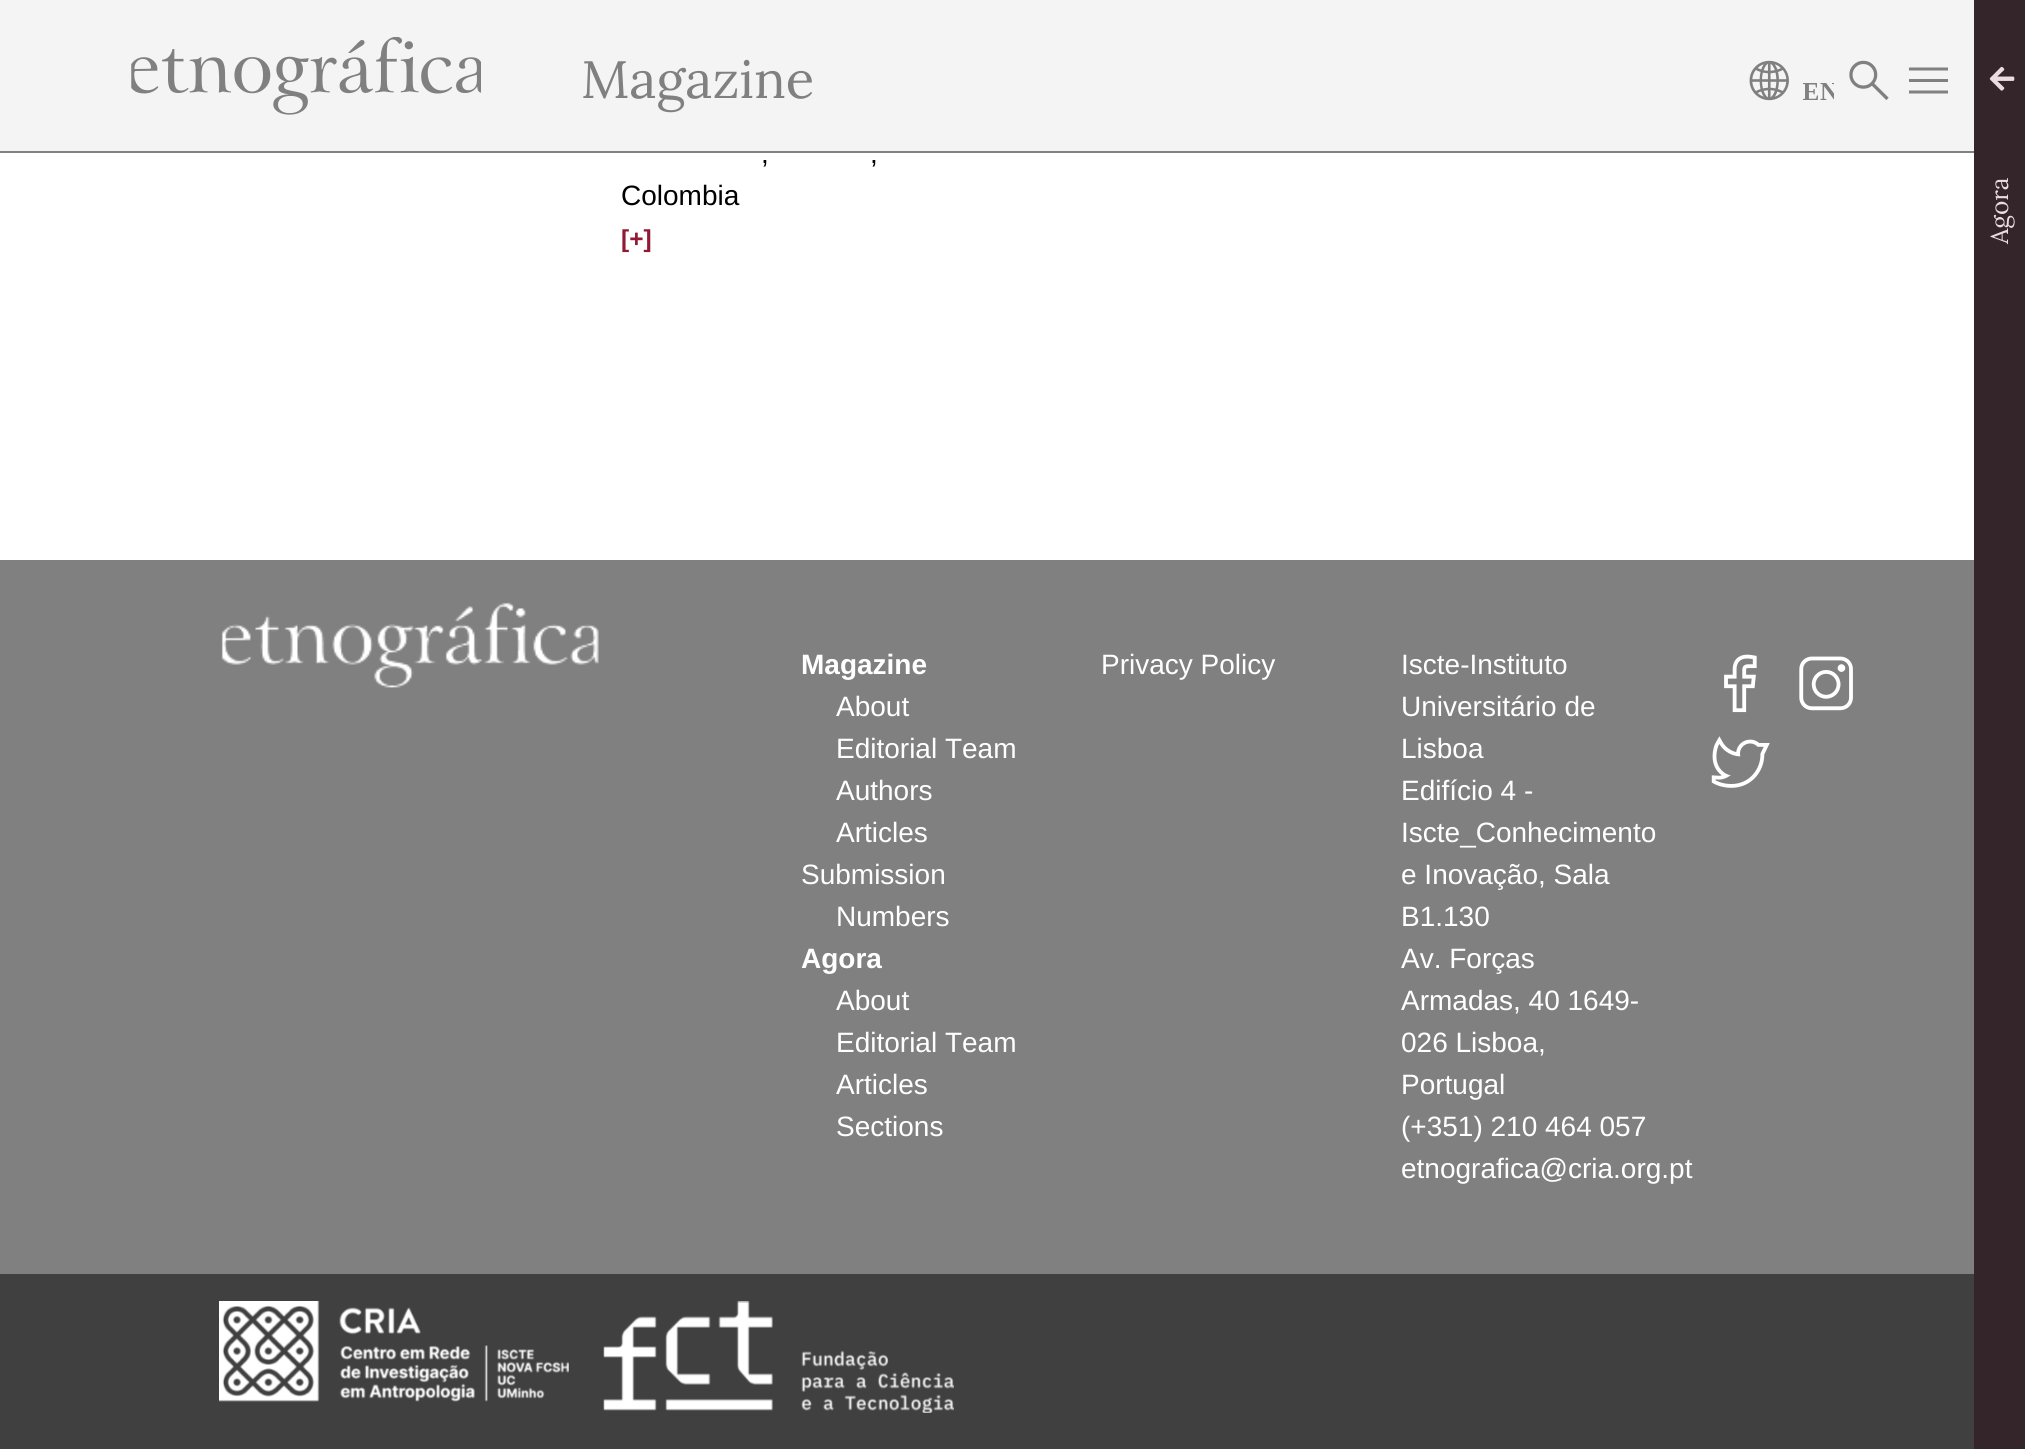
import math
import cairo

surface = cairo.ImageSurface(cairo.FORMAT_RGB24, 2025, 1449)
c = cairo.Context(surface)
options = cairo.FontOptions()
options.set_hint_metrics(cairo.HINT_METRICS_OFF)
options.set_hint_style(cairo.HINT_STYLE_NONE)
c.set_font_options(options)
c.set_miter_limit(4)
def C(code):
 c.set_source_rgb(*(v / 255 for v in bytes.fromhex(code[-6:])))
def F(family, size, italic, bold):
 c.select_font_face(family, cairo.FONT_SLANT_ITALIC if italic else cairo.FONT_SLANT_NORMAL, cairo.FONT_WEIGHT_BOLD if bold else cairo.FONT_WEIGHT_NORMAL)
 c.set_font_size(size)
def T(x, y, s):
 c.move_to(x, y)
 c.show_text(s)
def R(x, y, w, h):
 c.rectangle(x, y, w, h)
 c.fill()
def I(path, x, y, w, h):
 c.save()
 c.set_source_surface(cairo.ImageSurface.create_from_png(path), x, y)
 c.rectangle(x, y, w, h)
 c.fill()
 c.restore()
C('ffffff')
c.paint()
C('808080')
R(0,151,1974,2)
C('f4f4f4')
R(0,0,1974,151)
I('1.png',131,37,350,78)
F('Lora',52.5,0,0)
C('808080')
T(581,98,'Magazine')
I('2.png',1749,60,40,41)
I('3.png',1803,83,31,17)
I('4.png',1849,60,40,40)
c.new_path()
c.move_to(1909,93.5)
c.line_to(1909,90.5)
c.line_to(1948,90.5)
c.line_to(1948,93.5)
c.close_path()
c.move_to(1909,82)
c.line_to(1909,79)
c.line_to(1948,79)
c.line_to(1948,82)
c.close_path()
c.move_to(1909,70.5)
c.line_to(1909,67.5)
c.line_to(1948,67.5)
c.line_to(1948,70.5)
c.close_path()
c.fill()
F('Liberation Sans',28,0,0)
C('000000')
T(761,163,',')
T(870,163,',')
T(621,205,'Colombia')
F('Liberation Sans',24.5,0,1)
C('911934')
T(621,247,'[+]')
C('808080')
R(0,560,1974,714)
I('5.png',221,602,378,86)
F('Liberation Sans',28,0,1)
C('ffffff')
T(801,674,'Magazine')
F('Liberation Sans',28,0,0)
T(836,716,'About')
T(836,758,'Editorial Team')
T(836,800,'Authors')
T(836,842,'Articles')
T(801,884,'Submission')
T(836,926,'Numbers')
F('Liberation Sans',28,0,1)
T(801,968,'Agora')
F('Liberation Sans',28,0,0)
T(836,1010,'About')
T(836,1052,'Editorial Team')
T(836,1094,'Articles')
T(836,1136,'Sections')
T(1101,674,'Privacy Policy')
T(1401,674,'Iscte-Instituto')
T(1401,716,'Universitário de')
T(1401,758,'Lisboa')
T(1401,800,'Edifício 4 -')
T(1401,842,'Iscte_Conhecimento')
T(1401,884,'e Inovação, Sala')
T(1401,926,'B1.130')
T(1401,968,'Av. Forças')
T(1401,1010,'Armadas, 40 1649-')
T(1401,1052,'026 Lisboa,')
T(1401,1094,'Portugal')
T(1401,1136,'(+351) 210 464 057')
T(1401,1178,'etnografica@cria.org.pt')
I('6.png',1724,654,33,59)
I('7.png',1799,656,54,55)
I('8.png',1711,736,59,52)
C('404040')
R(0,1274,1974,175)
I('9.png',219,1301,350,101)
I('10.png',603,1301,351,112)
C('332529')
R(1974,0,51,1449)
I('11.png',1989,66,26,25)
F('Lora',24.5,0,0)
C('eadce0')
c.save()
c.translate(2008,244)
c.rotate(-90 * math.pi / 180)
T(0,0,'Agora')
c.restore()
surface.write_to_png('o.png')
